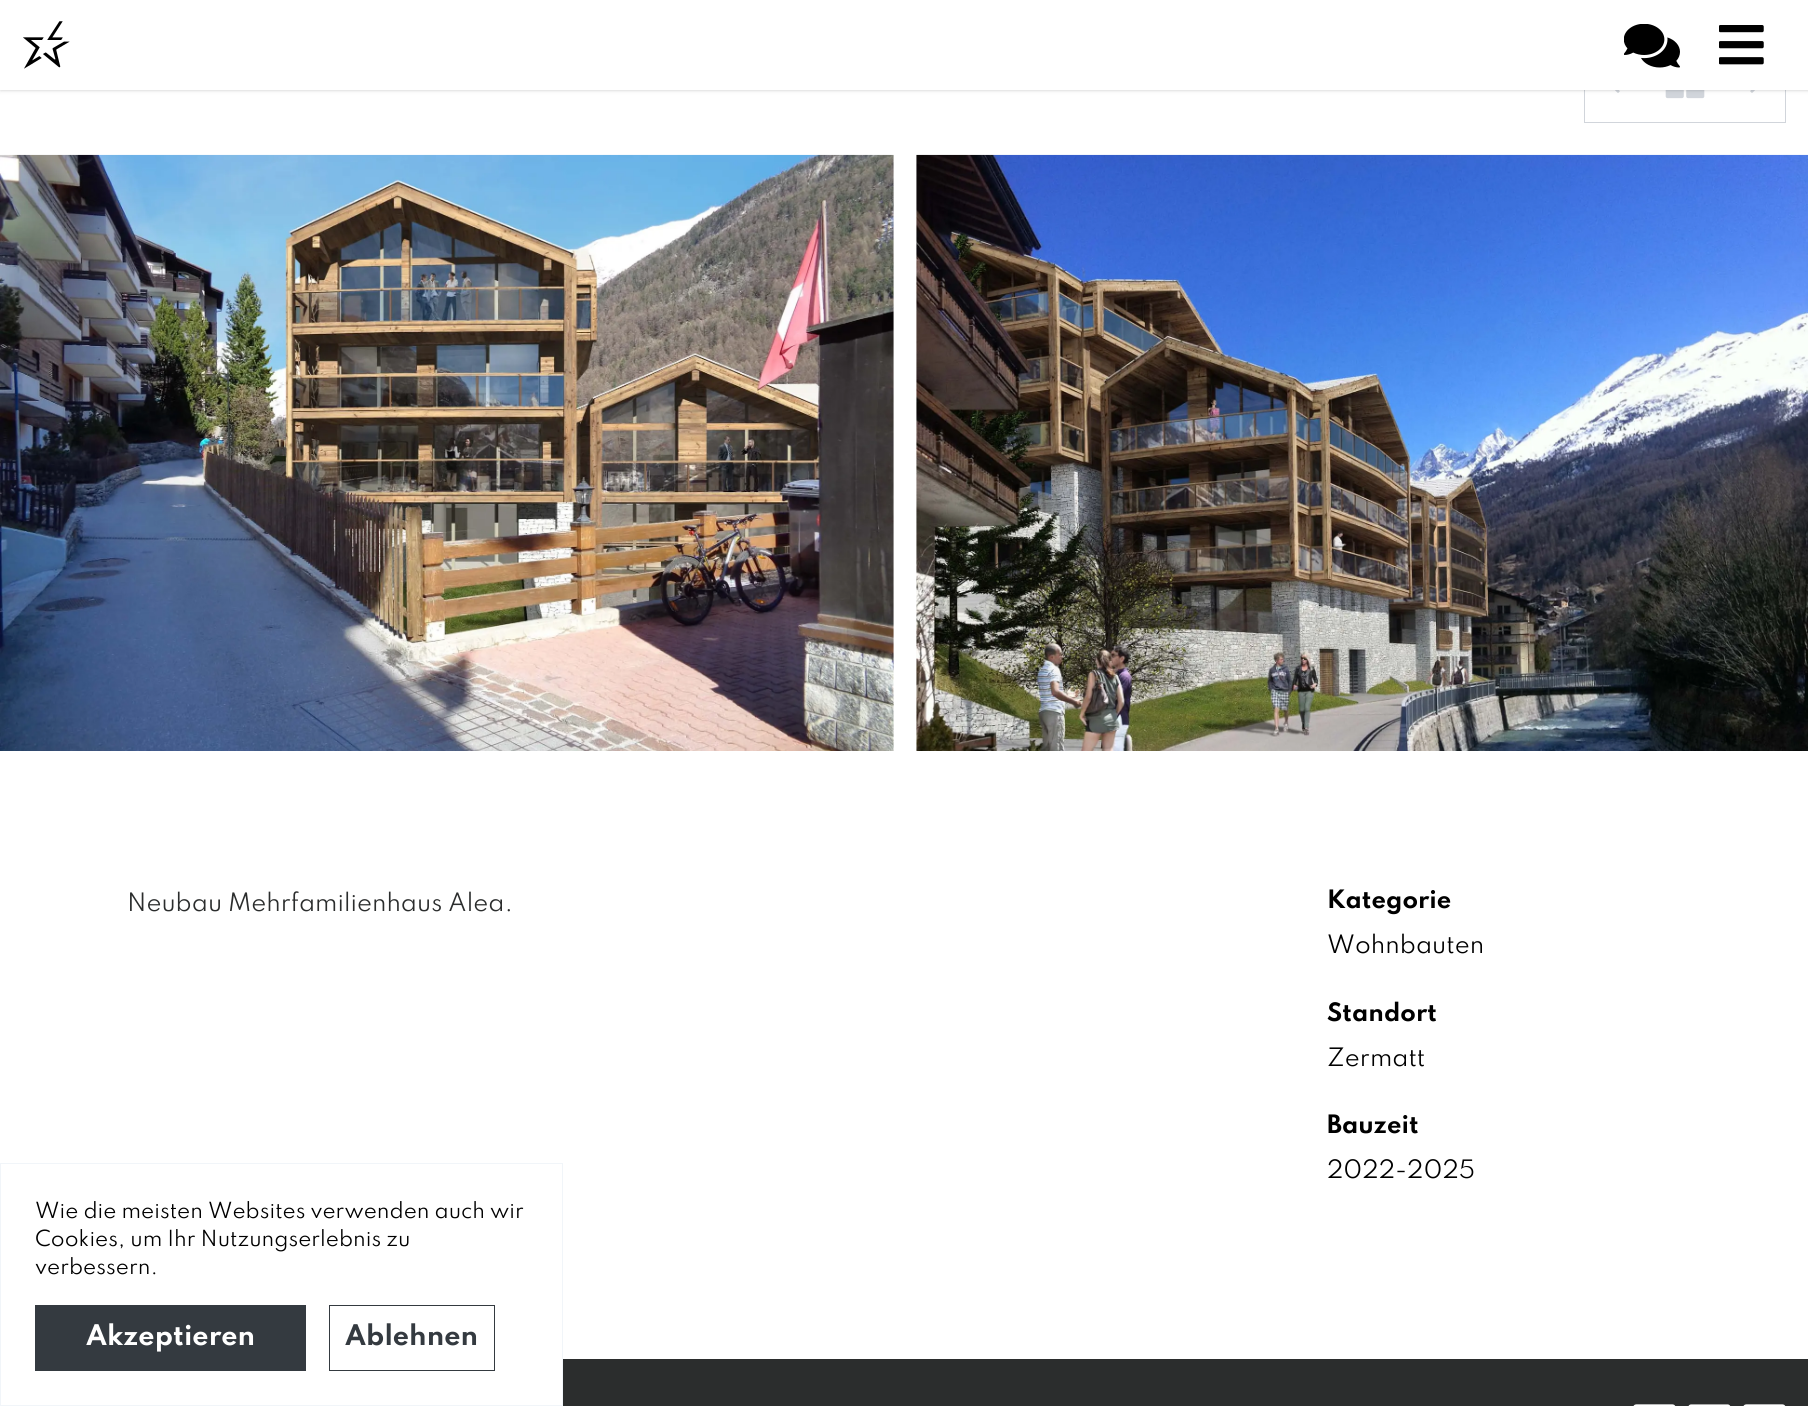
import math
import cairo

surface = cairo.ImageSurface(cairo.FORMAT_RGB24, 1808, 1406)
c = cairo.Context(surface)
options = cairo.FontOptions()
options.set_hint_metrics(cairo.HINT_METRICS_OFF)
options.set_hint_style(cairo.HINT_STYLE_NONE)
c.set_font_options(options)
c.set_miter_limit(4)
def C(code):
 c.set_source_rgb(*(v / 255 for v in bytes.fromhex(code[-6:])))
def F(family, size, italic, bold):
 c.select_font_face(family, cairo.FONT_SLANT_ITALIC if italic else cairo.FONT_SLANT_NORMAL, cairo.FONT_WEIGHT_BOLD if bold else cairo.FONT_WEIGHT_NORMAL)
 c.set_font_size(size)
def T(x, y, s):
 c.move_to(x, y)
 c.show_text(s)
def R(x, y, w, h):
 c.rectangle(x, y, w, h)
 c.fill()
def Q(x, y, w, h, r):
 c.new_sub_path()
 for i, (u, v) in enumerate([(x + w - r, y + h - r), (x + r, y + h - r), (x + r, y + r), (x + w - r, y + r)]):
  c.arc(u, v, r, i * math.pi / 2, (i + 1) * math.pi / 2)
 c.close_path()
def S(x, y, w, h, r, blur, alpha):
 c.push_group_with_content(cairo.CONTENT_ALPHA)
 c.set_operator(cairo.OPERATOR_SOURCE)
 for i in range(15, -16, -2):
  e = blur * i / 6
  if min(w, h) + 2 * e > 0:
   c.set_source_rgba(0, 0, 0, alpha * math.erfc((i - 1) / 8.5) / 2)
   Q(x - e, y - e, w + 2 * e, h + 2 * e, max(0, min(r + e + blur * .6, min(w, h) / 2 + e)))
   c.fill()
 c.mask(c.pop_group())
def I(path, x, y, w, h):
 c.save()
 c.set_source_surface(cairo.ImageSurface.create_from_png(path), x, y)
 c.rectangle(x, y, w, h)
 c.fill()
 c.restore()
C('ffffff')
c.paint()
c.rectangle(1584.5,11.5,201,111)
C('d1d5db')
c.set_line_width(1)
c.stroke()
I('4.png',1614,90,6,3)
I('5.png',1665,90,40,9)
I('6.png',1750,90,5,3)
C('000000')
S(1,3,1807,87,0,1,.1)
S(0,1,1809,90,0,2,.1)
C('ffffff')
R(0,0,1808,90)
I('1.png',23,21,47,48)
I('2.png',1624,24,56,44)
I('3.png',1719,25,45,40)
I('7.png',0,154,894,597)
I('8.png',916,154,892,597)
F('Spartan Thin',22.5,0,0)
C('2b2d2d')
T(127,911,'Neubau Mehrfamilienhaus Alea.')
F('Spartan Thin',22.5,0,1)
C('000000')
T(1327,908,'Kategorie')
F('Spartan Thin',22.5,0,0)
T(1327,953,'Wohnbauten')
F('Spartan Thin',22.5,0,1)
T(1327,1021,'Standort')
F('Spartan Thin',22.5,0,0)
T(1327,1066,'Zermatt')
F('Spartan Thin',22.5,0,1)
T(1327,1133,'Bauzeit')
F('Spartan Thin',22.5,0,0)
T(1327,1178,'2022-2025')
c.rectangle(.5,1163.5,562,242)
C('f1f5f9')
c.stroke()
F('Spartan Thin',19.7,0,0)
C('000000')
T(35,1218,'Wie die meisten Websites verwenden auch wir')
T(35,1246,'Cookies, um Ihr Nutzungserlebnis zu')
T(35,1274,'verbessern.')
C('343a40')
R(35,1305,271,66)
F('Spartan Thin',25.25,0,1)
C('ffffff')
T(86,1345,'Akzeptieren')
c.rectangle(329.5,1305.5,165,65)
C('343a40')
c.stroke()
T(345,1345,'Ablehnen')
C('2b2d2d')
R(563,1359,1245,47)
I('9.png',1633,1404,43,2)
I('10.png',1688,1404,43,2)
I('9.png',1743,1404,43,2)
surface.write_to_png('o.png')
